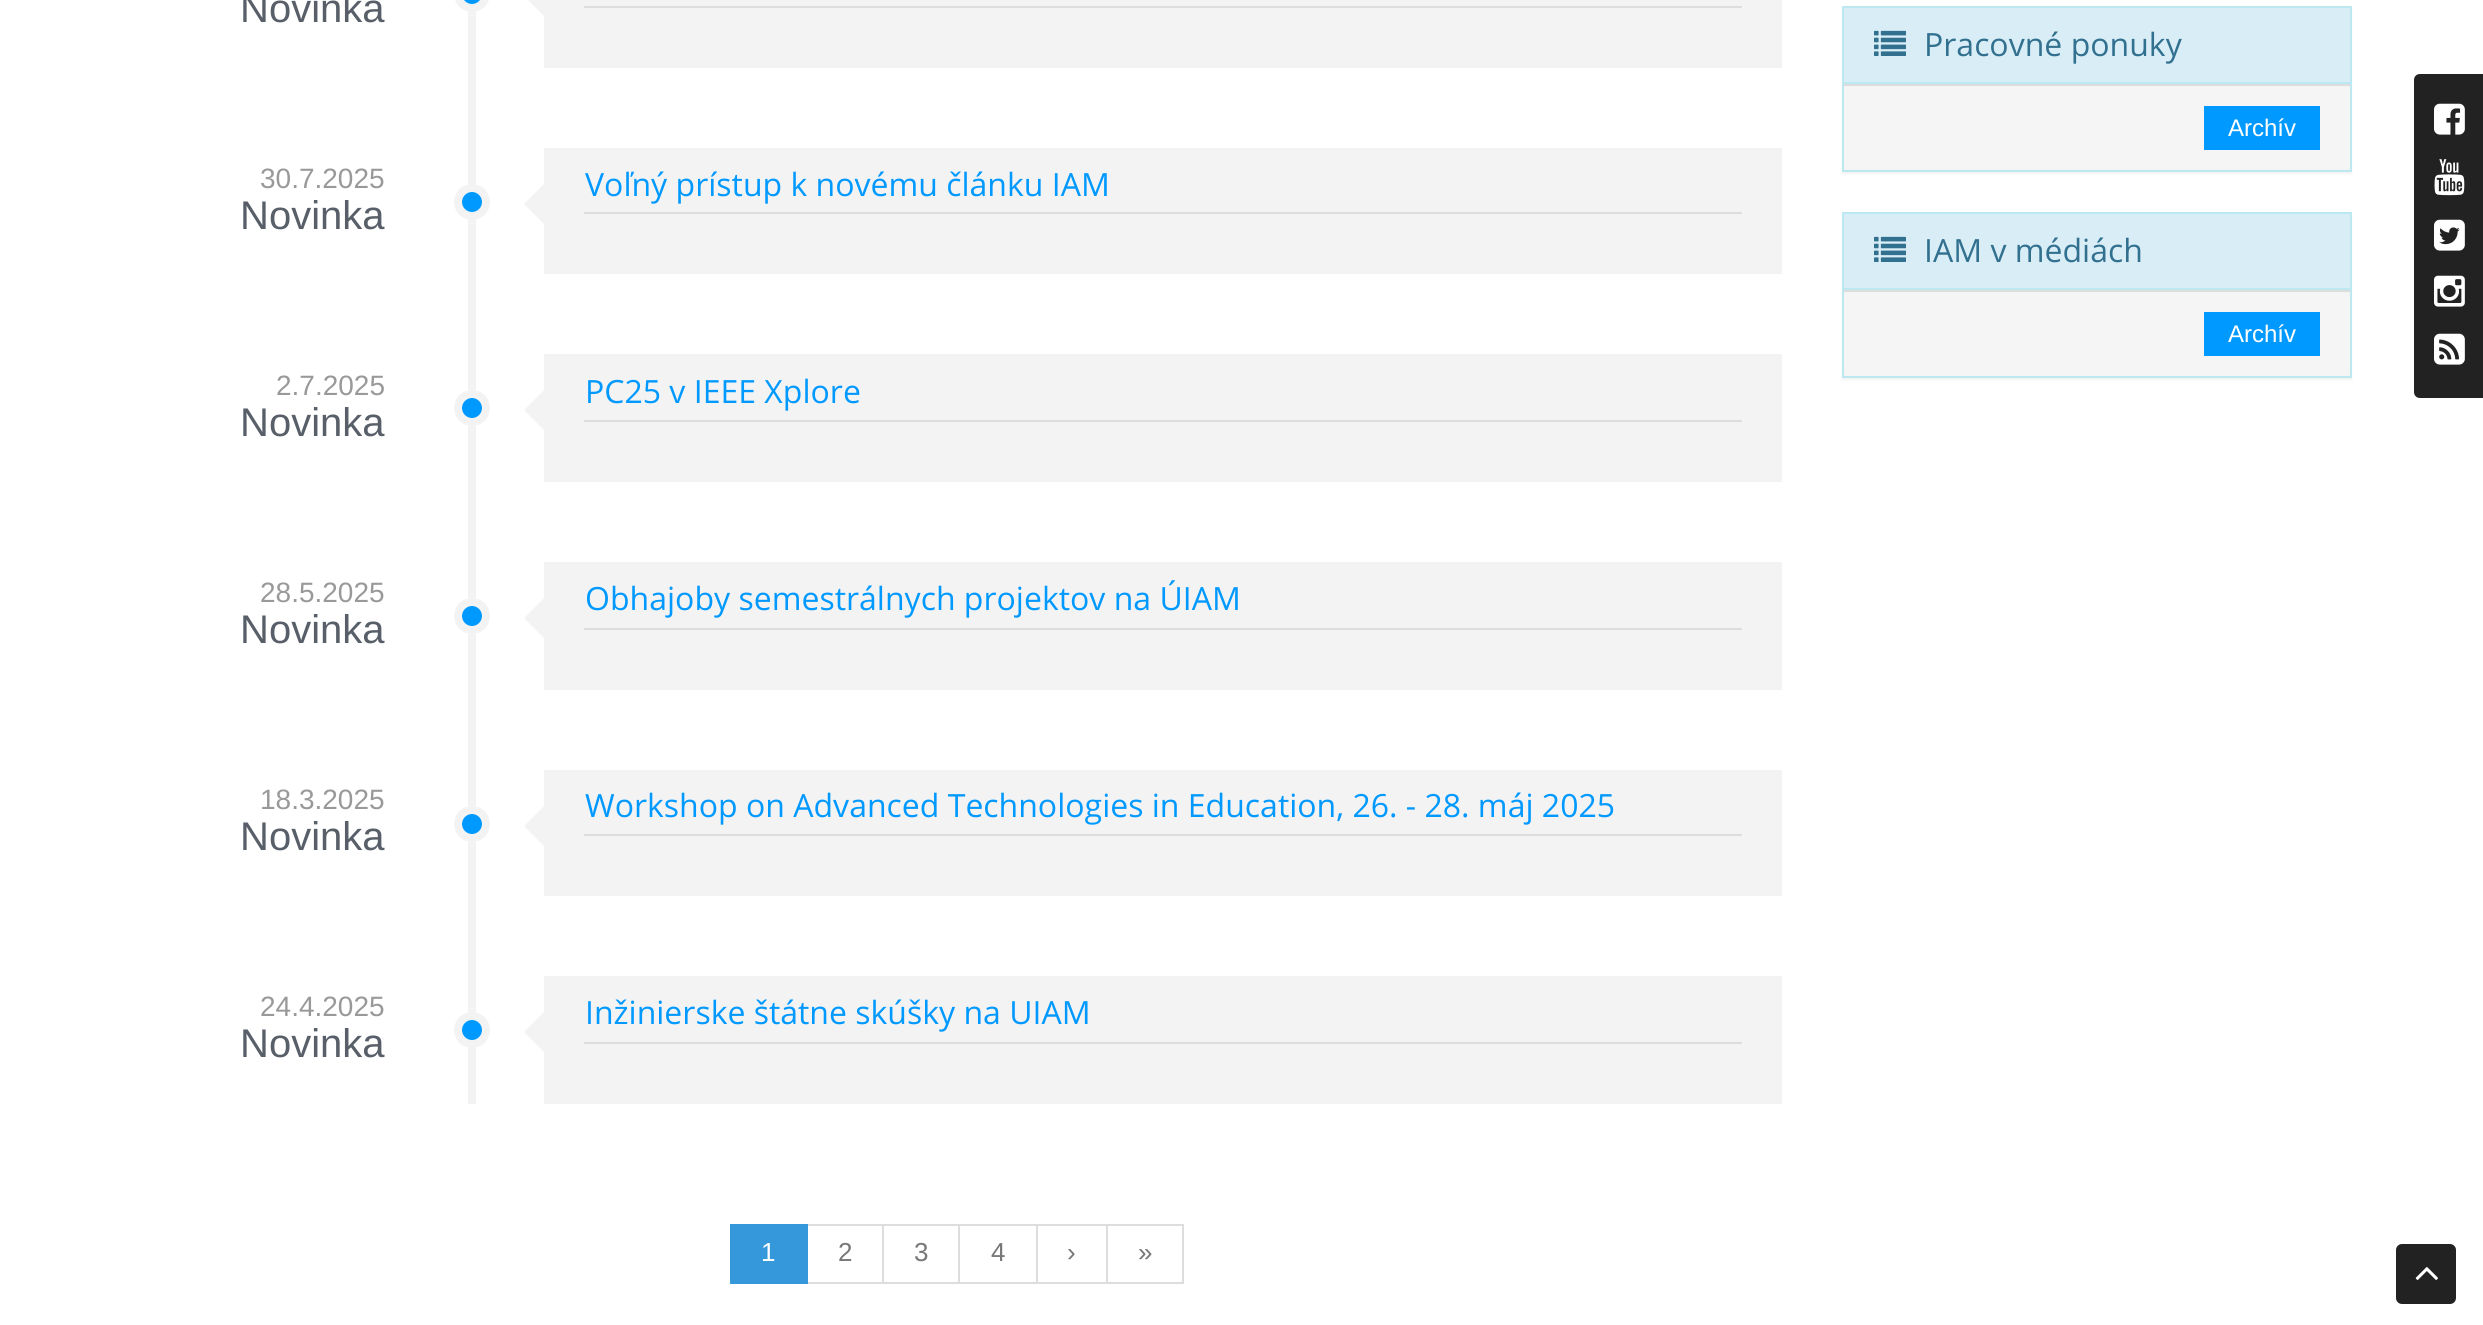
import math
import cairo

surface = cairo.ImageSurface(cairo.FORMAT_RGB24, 2483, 1325)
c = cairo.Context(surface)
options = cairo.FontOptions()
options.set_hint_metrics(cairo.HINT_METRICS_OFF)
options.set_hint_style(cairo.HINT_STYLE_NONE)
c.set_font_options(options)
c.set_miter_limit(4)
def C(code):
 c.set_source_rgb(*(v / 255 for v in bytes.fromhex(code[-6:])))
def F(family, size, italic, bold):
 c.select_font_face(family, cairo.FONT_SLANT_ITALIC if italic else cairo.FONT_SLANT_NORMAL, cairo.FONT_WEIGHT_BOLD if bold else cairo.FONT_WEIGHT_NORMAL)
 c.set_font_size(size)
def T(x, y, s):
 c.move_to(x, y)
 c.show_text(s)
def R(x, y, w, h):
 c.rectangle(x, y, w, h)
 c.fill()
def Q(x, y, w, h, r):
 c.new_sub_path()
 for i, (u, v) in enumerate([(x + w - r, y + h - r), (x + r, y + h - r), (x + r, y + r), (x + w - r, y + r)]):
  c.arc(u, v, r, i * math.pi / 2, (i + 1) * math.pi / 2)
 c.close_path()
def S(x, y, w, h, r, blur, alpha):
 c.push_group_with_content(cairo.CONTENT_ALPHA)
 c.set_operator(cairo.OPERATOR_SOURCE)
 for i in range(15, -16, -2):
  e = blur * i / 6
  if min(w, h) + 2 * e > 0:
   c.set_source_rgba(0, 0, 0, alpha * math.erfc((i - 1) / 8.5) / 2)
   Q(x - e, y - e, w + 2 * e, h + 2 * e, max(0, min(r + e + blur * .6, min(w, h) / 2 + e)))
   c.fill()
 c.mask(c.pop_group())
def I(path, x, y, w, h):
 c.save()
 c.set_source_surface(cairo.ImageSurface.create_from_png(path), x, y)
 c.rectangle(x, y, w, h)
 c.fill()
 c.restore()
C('ffffff')
c.paint()
F('Liberation Sans',40,0,0)
C('585f69')
T(240,22,'Novinka')
C('f3f3f3')
R(468,0,8,1104)
c.new_path()
c.arc(472,-6,14,0,2 * math.pi)
c.set_line_width(8)
c.stroke()
C('0099ff')
Q(462,-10,20,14,10)
c.fill()
C('f3f3f3')
R(544,0,1238,68)
c.new_path()
c.move_to(544,-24)
c.line_to(544,16)
c.line_to(524,-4)
c.close_path()
c.fill()
C('dddddd')
R(584,6,1158,2)
F('Liberation Sans',28,0,0)
C('999999')
T(260,188,'30.7.2025')
F('Liberation Sans',40,0,0)
C('585f69')
T(240,229,'Novinka')
c.new_path()
c.arc(472,202,14,0,2 * math.pi)
C('f3f3f3')
c.stroke()
C('0099ff')
c.arc(472,202,10,0,2 * math.pi)
c.fill()
C('f3f3f3')
R(544,148,1238,126)
c.new_path()
c.move_to(544,184)
c.line_to(544,224)
c.line_to(524,204)
c.close_path()
c.fill()
C('dddddd')
R(584,212,1158,2)
F('Open Sans',32,0,0)
C('0099ff')
T(585,196,'Voľný prístup k novému článku IAM')
F('Liberation Sans',28,0,0)
C('999999')
T(276,395,'2.7.2025')
F('Liberation Sans',40,0,0)
C('585f69')
T(240,436,'Novinka')
c.new_path()
c.arc(472,408,14,0,2 * math.pi)
C('f3f3f3')
c.stroke()
C('0099ff')
c.arc(472,408,10,0,2 * math.pi)
c.fill()
C('f3f3f3')
R(544,354,1238,128)
c.new_path()
c.move_to(544,390)
c.line_to(544,430)
c.line_to(524,410)
c.close_path()
c.fill()
C('dddddd')
R(584,420,1158,2)
F('Open Sans',32,0,0)
C('0099ff')
T(585,403,'PC25 v IEEE Xplore')
F('Liberation Sans',28,0,0)
C('999999')
T(260,602,'28.5.2025')
F('Liberation Sans',40,0,0)
C('585f69')
T(240,643,'Novinka')
c.new_path()
c.arc(472,616,14,0,2 * math.pi)
C('f3f3f3')
c.stroke()
C('0099ff')
c.arc(472,616,10,0,2 * math.pi)
c.fill()
C('f3f3f3')
R(544,562,1238,128)
c.new_path()
c.move_to(544,598)
c.line_to(544,638)
c.line_to(524,618)
c.close_path()
c.fill()
C('dddddd')
R(584,628,1158,2)
F('Open Sans',32,0,0)
C('0099ff')
T(585,610,'Obhajoby semestrálnych projektov na ÚIAM')
F('Liberation Sans',28,0,0)
C('999999')
T(260,809,'18.3.2025')
F('Liberation Sans',40,0,0)
C('585f69')
T(240,850,'Novinka')
c.new_path()
c.arc(472,824,14,0,2 * math.pi)
C('f3f3f3')
c.stroke()
C('0099ff')
c.arc(472,824,10,0,2 * math.pi)
c.fill()
C('f3f3f3')
R(544,770,1238,126)
c.new_path()
c.move_to(544,806)
c.line_to(544,846)
c.line_to(524,826)
c.close_path()
c.fill()
C('dddddd')
R(584,834,1158,2)
F('Open Sans',32,0,0)
C('0099ff')
T(585,817,'Workshop on Advanced Technologies in Education, 26. - 28. máj 2025')
F('Liberation Sans',28,0,0)
C('999999')
T(260,1016,'24.4.2025')
F('Liberation Sans',40,0,0)
C('585f69')
T(240,1057,'Novinka')
c.new_path()
c.arc(472,1030,14,0,2 * math.pi)
C('f3f3f3')
c.stroke()
C('0099ff')
c.arc(472,1030,10,0,2 * math.pi)
c.fill()
C('f3f3f3')
R(544,976,1238,128)
c.new_path()
c.move_to(544,1012)
c.line_to(544,1052)
c.line_to(524,1032)
c.close_path()
c.fill()
C('dddddd')
R(584,1042,1158,2)
F('Open Sans',32,0,0)
C('0099ff')
T(585,1024,'Inžinierske štátne skúšky na UIAM')
c.rectangle(807,1225,76,58)
C('dddddd')
c.set_line_width(2)
c.stroke()
C('3498db')
R(730,1224,78,60)
F('Liberation Sans',26,0,0)
C('ffffff')
T(761,1261,'1')
C('777777')
T(838,1261,'2')
c.rectangle(883,1225,76,58)
C('dddddd')
c.stroke()
C('777777')
T(914,1261,'3')
c.rectangle(959,1225,78,58)
C('dddddd')
c.stroke()
C('777777')
T(991,1261,'4')
c.rectangle(1037,1225,70,58)
C('dddddd')
c.stroke()
C('777777')
T(1067,1261,'›')
c.rectangle(1107,1225,76,58)
C('dddddd')
c.stroke()
C('777777')
T(1138,1261,'»')
C('000000')
S(1842,8,510,166,0,1,.05)
c.rectangle(1843,7,508,164)
C('bce8f1')
c.stroke()
C('d9edf7')
R(1844,8,506,74)
C('bce8f1')
R(1844,82,506,2)
I('1.png',1874,30,32,26)
F('Open Sans',32,0,0)
C('31708f')
T(1924,56,'Pracovné ponuky')
C('f5f5f5')
c.new_path()
c.move_to(1844,84)
c.line_to(2350,84)
c.line_to(2350,164)
c.curve_to(2350,167.5,2347.5,170,2344,170)
c.line_to(1850,170)
c.curve_to(1846.5,170,1844,167.5,1844,164)
c.close_path()
c.fill()
C('dddddd')
R(1844,84,506,2)
C('0099ff')
R(2204,106,116,44)
F('Liberation Sans',24,0,0)
C('ffffff')
T(2228,136,'Archív')
C('000000')
S(1842,214,510,166,0,1,.05)
c.rectangle(1843,213,508,164)
C('bce8f1')
c.stroke()
C('d9edf7')
R(1844,214,506,74)
C('bce8f1')
R(1844,288,506,2)
I('1.png',1874,236,32,26)
F('Open Sans',32,0,0)
C('31708f')
T(1924,262,'IAM v médiách')
C('f5f5f5')
c.new_path()
c.move_to(1844,290)
c.line_to(2350,290)
c.line_to(2350,370)
c.curve_to(2350,373.5,2347.5,376,2344,376)
c.line_to(1850,376)
c.curve_to(1846.5,376,1844,373.5,1844,370)
c.close_path()
c.fill()
C('dddddd')
R(1844,290,506,2)
C('0099ff')
R(2204,312,116,44)
F('Liberation Sans',24,0,0)
C('ffffff')
T(2228,342,'Archív')
C('222222')
c.new_path()
c.move_to(2420,74)
c.line_to(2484,74)
c.line_to(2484,398)
c.line_to(2420,398)
c.curve_to(2416.5,398,2414,395.5,2414,392)
c.line_to(2414,80)
c.curve_to(2414,76.5,2416.5,74,2420,74)
c.close_path()
c.fill()
I('2.png',2434,103,31,32)
I('3.png',2434,159,31,37)
I('4.png',2434,219,31,32)
I('5.png',2434,275,31,32)
I('6.png',2434,333,31,32)
Q(2396,1244,60,60,6)
c.fill()
I('7.png',2415,1267,23,13)
surface.write_to_png('o.png')
